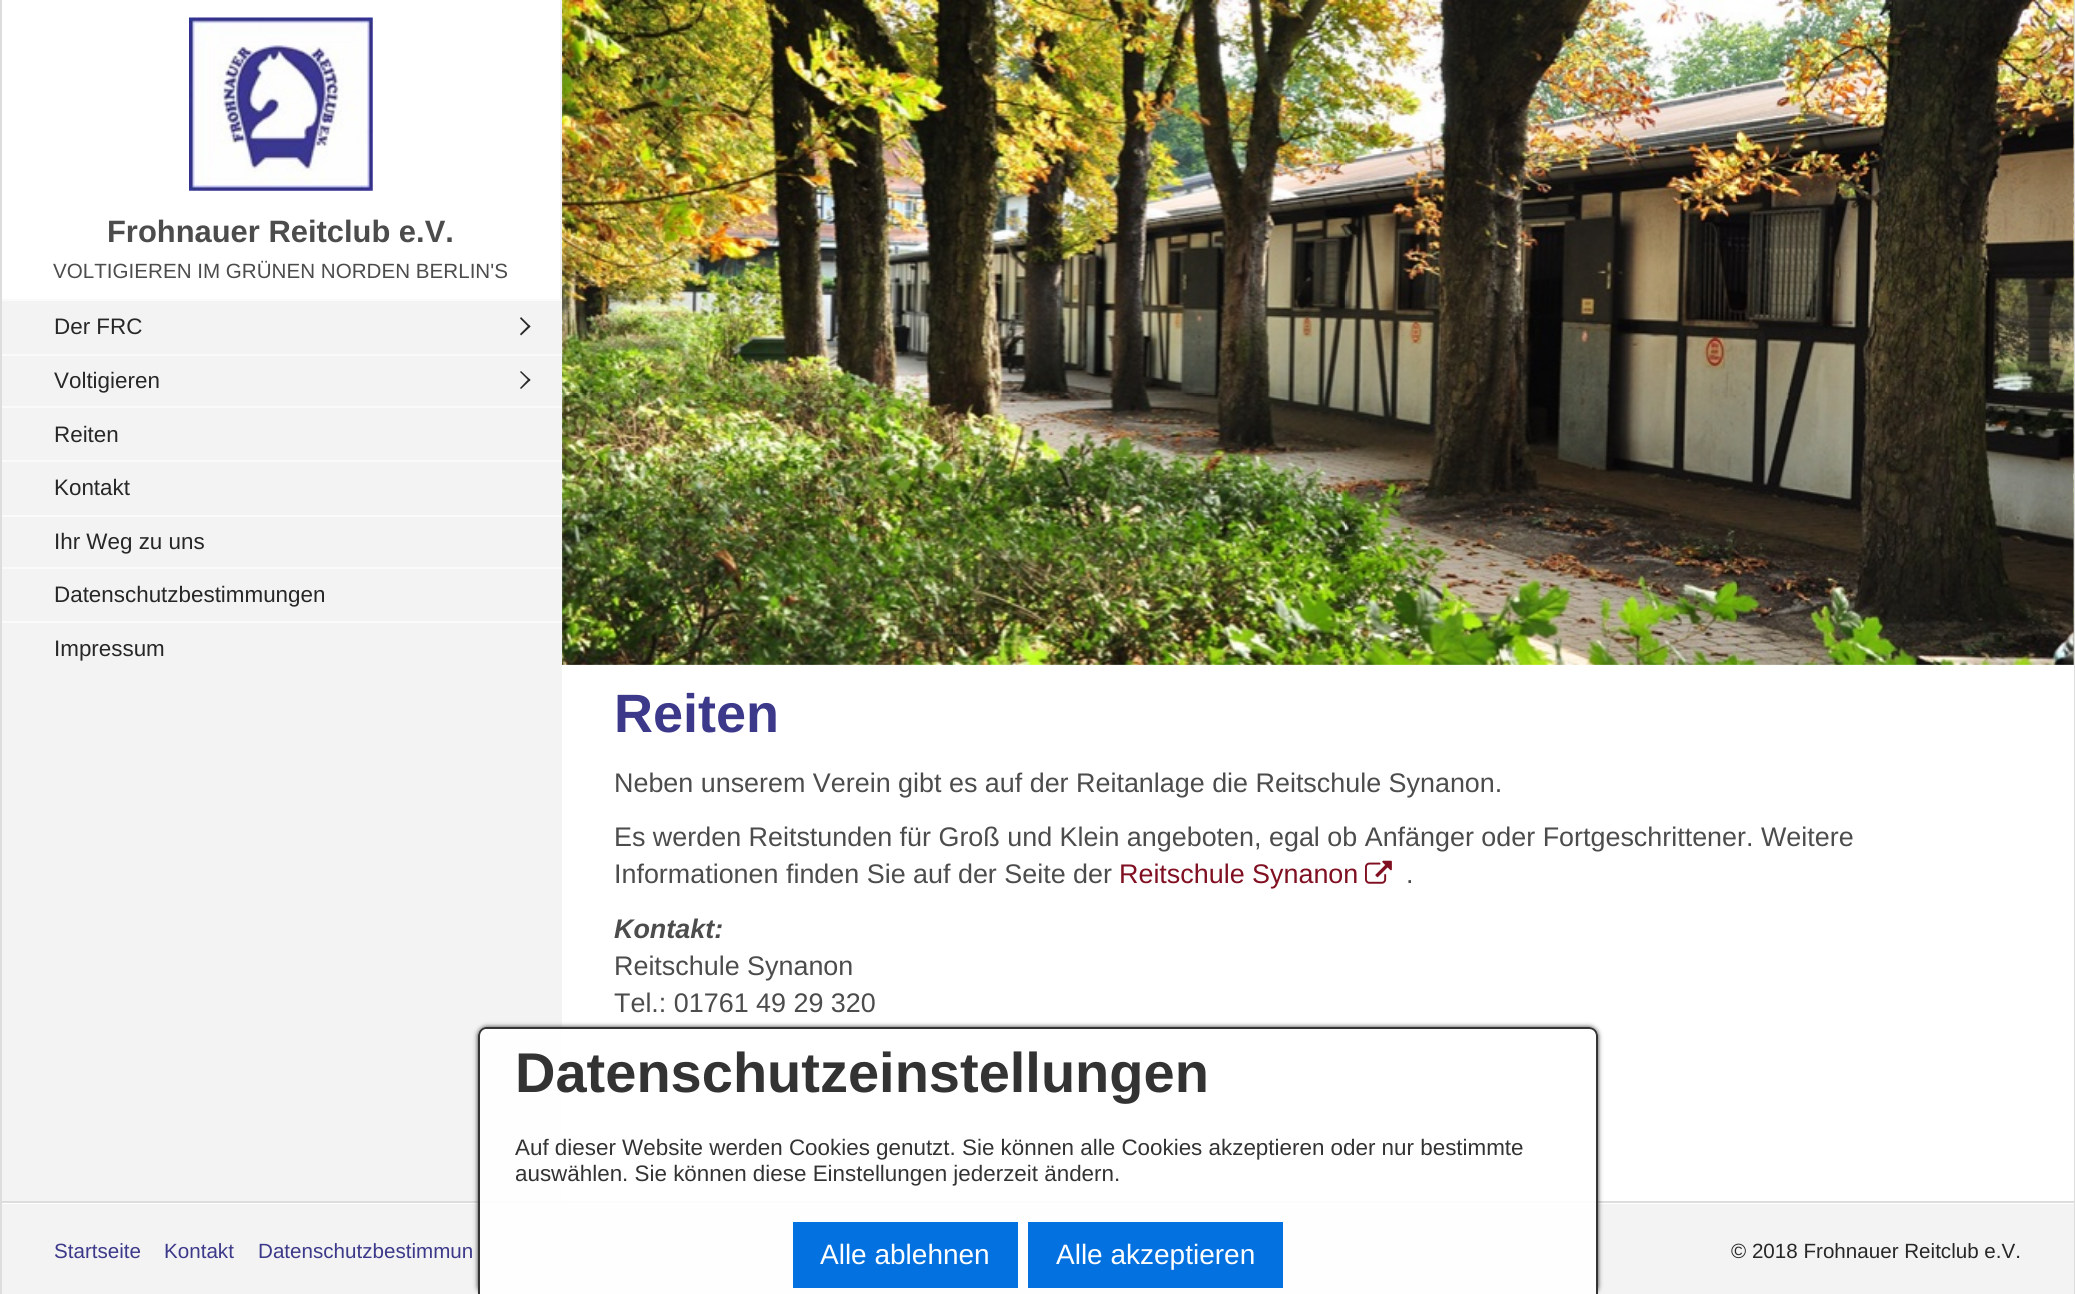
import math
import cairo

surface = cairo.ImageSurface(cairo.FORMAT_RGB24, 2075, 1294)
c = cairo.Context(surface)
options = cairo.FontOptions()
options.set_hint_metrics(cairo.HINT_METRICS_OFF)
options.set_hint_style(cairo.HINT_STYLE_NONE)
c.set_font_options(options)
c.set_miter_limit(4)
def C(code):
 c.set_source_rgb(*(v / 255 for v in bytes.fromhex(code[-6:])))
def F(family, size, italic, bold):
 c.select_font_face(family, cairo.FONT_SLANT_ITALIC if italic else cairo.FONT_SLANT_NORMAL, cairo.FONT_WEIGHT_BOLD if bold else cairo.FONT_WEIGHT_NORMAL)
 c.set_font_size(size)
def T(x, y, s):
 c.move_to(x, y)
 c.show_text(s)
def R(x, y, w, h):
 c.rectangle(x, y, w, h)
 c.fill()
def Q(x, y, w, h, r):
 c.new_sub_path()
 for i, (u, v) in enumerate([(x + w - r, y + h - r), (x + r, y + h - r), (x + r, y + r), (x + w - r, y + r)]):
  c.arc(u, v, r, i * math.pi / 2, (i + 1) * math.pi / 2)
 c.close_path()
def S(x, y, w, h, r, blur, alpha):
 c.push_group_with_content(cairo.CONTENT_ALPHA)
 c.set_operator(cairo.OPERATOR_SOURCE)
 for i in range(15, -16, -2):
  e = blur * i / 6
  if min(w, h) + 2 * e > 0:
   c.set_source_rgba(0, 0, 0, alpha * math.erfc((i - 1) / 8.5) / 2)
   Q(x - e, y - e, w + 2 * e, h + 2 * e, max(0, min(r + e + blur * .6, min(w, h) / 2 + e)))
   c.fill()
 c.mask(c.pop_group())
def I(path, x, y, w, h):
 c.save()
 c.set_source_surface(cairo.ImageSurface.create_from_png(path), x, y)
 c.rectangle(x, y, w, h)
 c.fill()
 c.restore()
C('ffffff')
c.paint()
C('dddddd')
R(2074,0,1,1294)
R(0,1202,2,92)
R(0,1201,2075,2)
R(0,0,2,1202)
C('f3f3f3')
R(560,0,2,299)
I('1.png',189,17,184,174)
F('Liberation Sans',30.9,0,1)
C('4c4c4c')
T(107,242,'Frohnauer Reitclub e.V.')
F('Liberation Sans',20.6,0,0)
T(53,278,'VOLTIGIEREN IM GRÜNEN NORDEN BERLIN\'S')
C('f3f3f3')
R(2,301,560,900)
C('fafafa')
R(2,299,560,2)
F('Liberation Sans',22.4,0,0)
C('272727')
T(54,334,'Der FRC')
c.new_path()
c.move_to(521,317)
c.line_to(530.5,326.5)
c.line_to(529,327.5)
c.line_to(520,318.5)
c.close_path()
c.fill()
c.new_path()
c.move_to(529,325)
c.line_to(530.5,326.5)
c.line_to(521,335.5)
c.line_to(520,334)
c.close_path()
c.fill()
C('fafafa')
R(2,354,560,2)
C('272727')
T(54,388,'Voltigieren')
c.new_path()
c.move_to(521,371)
c.line_to(530.5,380)
c.line_to(529,381)
c.line_to(520,372)
c.close_path()
c.fill()
c.new_path()
c.move_to(529,378.5)
c.line_to(530.5,380)
c.line_to(521,389)
c.line_to(520,388)
c.close_path()
c.fill()
C('fafafa')
R(2,406,560,2)
C('272727')
T(54,442,'Reiten')
C('fafafa')
R(2,460,560,2)
C('272727')
T(54,495,'Kontakt')
C('fafafa')
R(2,515,560,2)
C('272727')
T(54,549,'Ihr Weg zu uns')
C('fafafa')
R(2,567,560,2)
C('272727')
T(54,602,'Datenschutzbestimmungen')
C('fafafa')
R(2,621,560,2)
C('272727')
T(54,656,'Impressum')
I('2.png',562,0,1512,665)
I('3.png',2073,0,1,665)
F('Liberation Sans',54,0,1)
C('3c398a')
T(614,732,'Reiten')
F('Liberation Sans',26.9,0,0)
C('4c4c4c')
T(614,792,'Neben unserem Verein gibt es auf der Reitanlage die Reitschule Synanon.')
T(614,846,'Es werden Reitstunden für Groß und Klein angeboten, egal ob Anfänger oder Fortgeschrittener. Weitere')
T(614,883,'Informationen finden Sie auf der Seite der')
C('801021')
T(1119,883,'Reitschule Synanon')
I('4.png',1365,860,27,24)
C('4c4c4c')
T(1406,883,'.')
F('Liberation Sans',26.9,1,1)
T(614,938,'Kontakt:')
F('Liberation Sans',26.9,0,0)
T(614,975,'Reitschule Synanon')
T(614,1012,'Tel.: 01761 49 29 320')
C('f3f3f3')
R(2,1204,2072,90)
F('Liberation Sans',20.6,0,0)
C('3c398a')
T(54,1258,'Startseite')
T(164,1258,'Kontakt')
T(258,1258,'Datenschutzbestimmun')
C('272727')
T(1731,1258,'© 2018 Frohnauer Reitclub e.V.')
c.save()
c.set_fill_rule(cairo.FILL_RULE_EVEN_ODD)
c.new_path()
c.move_to(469,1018)
c.line_to(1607,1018)
c.line_to(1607,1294)
c.line_to(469,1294)
c.close_path()
c.move_to(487,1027)
c.line_to(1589,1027)
c.curve_to(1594,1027,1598,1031,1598,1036)
c.line_to(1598,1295)
c.line_to(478,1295)
c.line_to(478,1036)
c.curve_to(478,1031,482,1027,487,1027)
c.close_path()
c.clip()
C('000000')
S(478,1027,1120,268,9,2.5,.8)
c.restore()
c.set_source_rgba(1,1,1,0.9)
c.new_path()
c.move_to(487,1027)
c.line_to(1589,1027)
c.curve_to(1594,1027,1598,1031,1598,1036)
c.line_to(1598,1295)
c.line_to(478,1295)
c.line_to(478,1036)
c.curve_to(478,1031,482,1027,487,1027)
c.close_path()
c.fill()
C('333333')
c.set_fill_rule(cairo.FILL_RULE_EVEN_ODD)
c.new_path()
c.move_to(486,1027)
c.line_to(1589,1027)
c.curve_to(1594,1027,1598,1031,1598,1036)
c.line_to(1598,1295)
c.line_to(478,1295)
c.line_to(478,1036)
c.curve_to(478,1031,482,1027,486,1027)
c.close_path()
c.move_to(486,1029)
c.line_to(1589,1029)
c.curve_to(1593,1029,1596,1032,1596,1036)
c.line_to(1596,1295)
c.line_to(480,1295)
c.line_to(480,1036)
c.curve_to(480,1032,483,1029,486,1029)
c.close_path()
c.fill()
F('Liberation Sans',56,0,1)
T(515,1092,'Datenschutzeinstellungen')
F('Liberation Sans',22.4,0,0)
T(515,1155,'Auf dieser Website werden Cookies genutzt. Sie können alle Cookies akzeptieren oder nur bestimmte')
T(515,1181,'auswählen. Sie können diese Einstellungen jederzeit ändern.')
C('0371df')
R(793,1222,225,66)
F('Liberation Sans',28,0,0)
C('ffffff')
T(820,1264,'Alle ablehnen')
C('0371df')
R(1028,1222,255,66)
C('ffffff')
T(1056,1264,'Alle akzeptieren')
surface.write_to_png('o.png')
